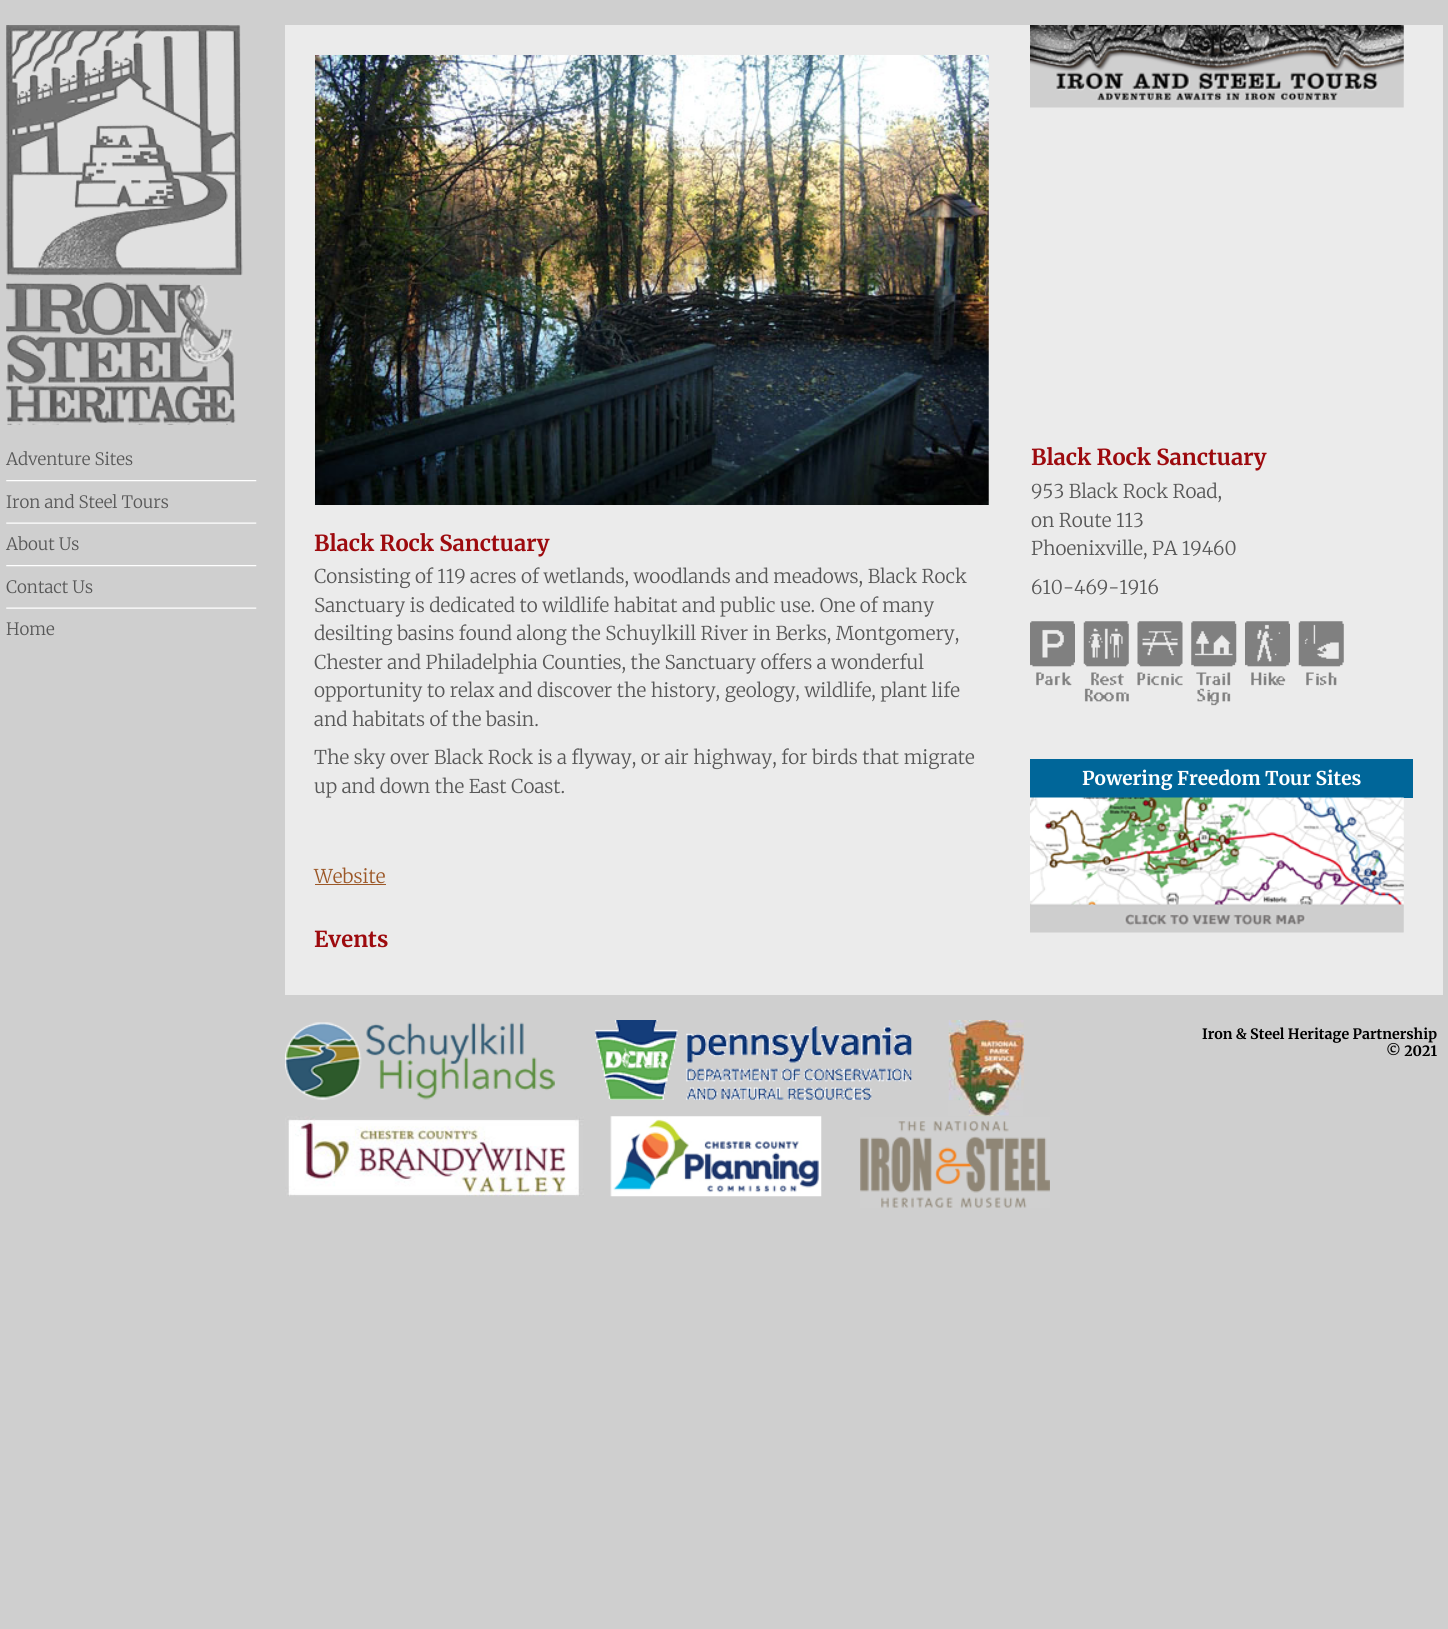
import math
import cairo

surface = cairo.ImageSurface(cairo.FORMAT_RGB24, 1448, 1629)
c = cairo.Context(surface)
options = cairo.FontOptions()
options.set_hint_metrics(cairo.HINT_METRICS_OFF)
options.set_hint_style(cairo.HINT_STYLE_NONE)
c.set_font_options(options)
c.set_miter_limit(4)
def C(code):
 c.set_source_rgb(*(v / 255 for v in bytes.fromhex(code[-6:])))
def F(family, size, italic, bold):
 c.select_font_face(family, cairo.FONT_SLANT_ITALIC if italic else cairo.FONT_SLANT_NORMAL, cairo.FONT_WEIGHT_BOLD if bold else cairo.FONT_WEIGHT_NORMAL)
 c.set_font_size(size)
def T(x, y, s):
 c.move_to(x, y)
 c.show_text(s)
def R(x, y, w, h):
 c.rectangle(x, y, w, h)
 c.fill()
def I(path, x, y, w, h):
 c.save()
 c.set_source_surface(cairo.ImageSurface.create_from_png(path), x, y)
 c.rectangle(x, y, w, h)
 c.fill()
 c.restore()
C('cfcfcf')
c.paint()
I('1.png',6,25,237,400)
F('Merriweather Light',17,0,0)
C('585858')
T(6,465,'Adventure Sites')
I('2.png',6,480,251,2)
T(6,508,'Iron and Steel Tours')
I('3.png',6,522,251,2)
T(6,550,'About Us')
I('2.png',6,565,251,2)
T(6,593,'Contact Us')
I('3.png',6,607,251,2)
T(6,635,'Home')
C('ebebeb')
R(285,25,1158,970)
I('4.png',315,55,674,450)
F('Merriweather',22,0,1)
C('9d0a0e')
T(314,551,'Black Rock Sanctuary')
F('Merriweather Light',19,0,0)
C('585858')
T(314,583,'Consisting of 119 acres of wetlands, woodlands and meadows, Black Rock')
T(314,612,'Sanctuary is dedicated to wildlife habitat and public use. One of many')
T(314,640,'desilting basins found along the Schuylkill River in Berks, Montgomery,')
T(314,669,'Chester and Philadelphia Counties, the Sanctuary offers a wonderful')
T(314,697,'opportunity to relax and discover the history, geology, wildlife, plant life')
T(314,726,'and habitats of the basin.')
T(314,764,'The sky over Black Rock is a flyway, or air highway, for birds that migrate')
T(314,793,'up and down the East Coast.')
C('9c5828')
T(314,883,'Website')
R(315,884,71,1)
F('Merriweather',22,0,1)
C('9d0a0e')
T(314,947,'Events')
I('5.png',1030,25,374,83)
T(1031,465,'Black Rock Sanctuary')
F('Merriweather Light',19,0,0)
C('585858')
T(1031,498,'953 Black Rock Road,')
T(1031,527,'on Route 113')
T(1031,555,'Phoenixville, PA 19460')
T(1031,594,'610-469-1916')
I('6.png',1030,621,45,65)
I('7.png',1083,621,46,81)
I('8.png',1137,621,46,65)
I('9.png',1191,621,46,85)
I('10.png',1245,621,45,65)
I('11.png',1298,621,46,65)
C('006699')
R(1030,759,383,39)
F('Merriweather',19,0,1)
C('ffffff')
T(1082,785,'Powering Freedom Tour Sites')
I('12.png',1030,797,374,136)
I('13.png',285,1022,270,78)
I('14.png',594,1020,318,80)
I('15.png',948,1020,76,97)
I('16.png',285,1116,299,81)
I('17.png',610,1116,212,81)
I('18.png',860,1116,190,92)
F('Merriweather',14.25,0,1)
C('000000')
T(1202,1039,'Iron & Steel Heritage Partnership')
T(1386,1056,'© 2021')
surface.write_to_png('o.png')
